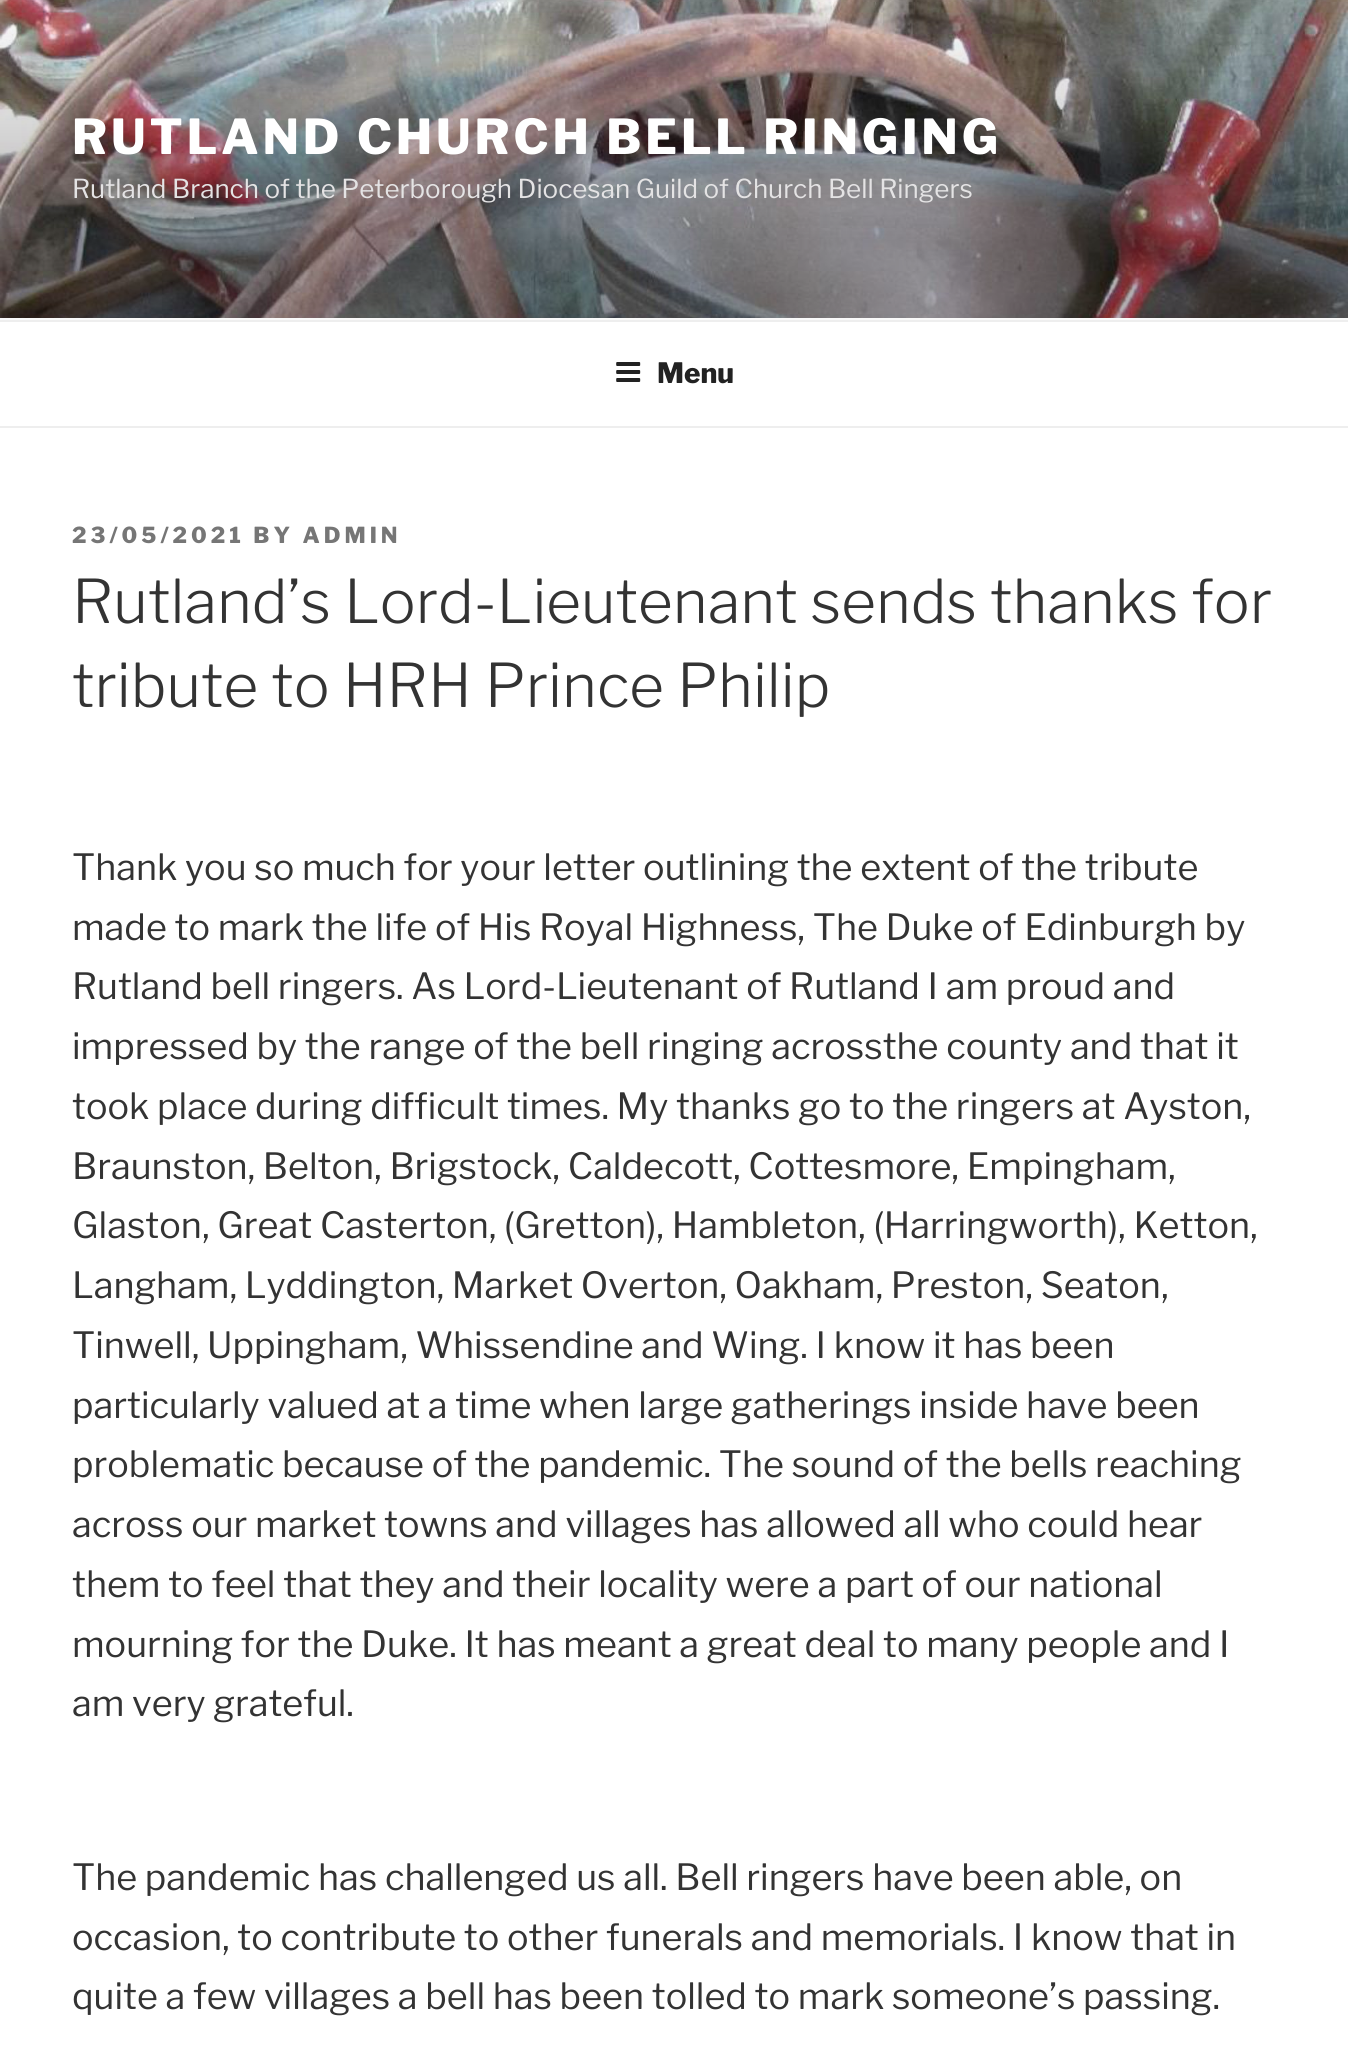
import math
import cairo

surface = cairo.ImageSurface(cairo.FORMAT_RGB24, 1348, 2047)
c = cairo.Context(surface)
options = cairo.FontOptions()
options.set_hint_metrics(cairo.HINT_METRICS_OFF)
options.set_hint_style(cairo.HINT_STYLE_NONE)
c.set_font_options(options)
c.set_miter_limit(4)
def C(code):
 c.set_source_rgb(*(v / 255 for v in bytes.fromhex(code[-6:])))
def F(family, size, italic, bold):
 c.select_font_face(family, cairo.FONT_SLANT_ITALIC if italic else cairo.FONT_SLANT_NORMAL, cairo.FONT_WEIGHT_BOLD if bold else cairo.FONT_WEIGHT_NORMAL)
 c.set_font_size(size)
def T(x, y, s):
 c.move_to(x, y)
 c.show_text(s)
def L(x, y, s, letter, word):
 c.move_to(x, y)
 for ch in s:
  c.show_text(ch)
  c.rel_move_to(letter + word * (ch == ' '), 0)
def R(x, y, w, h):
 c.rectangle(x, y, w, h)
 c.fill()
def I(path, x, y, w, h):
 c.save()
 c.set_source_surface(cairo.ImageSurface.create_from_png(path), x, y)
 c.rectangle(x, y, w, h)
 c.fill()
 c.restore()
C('ffffff')
c.paint()
C('fafafa')
R(0,318,1348,2)
I('1.png',0,0,1348,318)
F('Libre Franklin Thin',48,0,0)
C('ffffff')
L(72,154,'RUTLAND CHURCH BELL RINGING',3.85,0)
F('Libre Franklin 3 Thin',26,0,0)
C('e4e3e4')
T(72,198,'Rutland Branch of the Peterborough Diocesan Guild of Church Bell Ringers')
C('eeeeee')
R(0,320,1348,2)
R(0,426,1348,2)
I('2.png',616,362,25,20)
F('Libre Franklin Thin',28,0,0)
C('222222')
T(657,383,'Menu')
F('Libre Franklin Thin',22,0,0)
C('767676')
L(72,543,'23/05/2021 BY ADMIN',4,0)
F('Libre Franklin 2 Thin',60,0,0)
C('333333')
T(72,623,'Rutland’s Lord-Lieutenant sends thanks for')
T(72,707,'tribute to HRH Prince Philip')
F('Libre Franklin 3 Thin',36,0,0)
T(72,880,'Thank you so much for your letter outlining the extent of the tribute')
T(72,940,'made to mark the life of His Royal Highness, The Duke of Edinburgh by')
T(72,999,'Rutland bell ringers. As Lord-Lieutenant of Rutland I am proud and')
T(72,1059,'impressed by the range of the bell ringing acrossthe county and that it')
T(72,1119,'took place during difficult times. My thanks go to the ringers at Ayston,')
T(72,1179,'Braunston, Belton, Brigstock, Caldecott, Cottesmore, Empingham,')
T(72,1238,'Glaston, Great Casterton, (Gretton), Hambleton, (Harringworth), Ketton,')
T(72,1298,'Langham, Lyddington, Market Overton, Oakham, Preston, Seaton,')
T(72,1358,'Tinwell, Uppingham, Whissendine and Wing. I know it has been')
T(72,1418,'particularly valued at a time when large gatherings inside have been')
T(72,1477,'problematic because of the pandemic. The sound of the bells reaching')
T(72,1537,'across our market towns and villages has allowed all who could hear')
T(72,1597,'them to feel that they and their locality were a part of our national')
T(72,1657,'mourning for the Duke. It has meant a great deal to many people and I')
T(72,1716,'am very grateful.')
T(72,1890,'The pandemic has challenged us all. Bell ringers have been able, on')
T(72,1950,'occasion, to contribute to other funerals and memorials. I know that in')
T(72,2009,'quite a few villages a bell has been tolled to mark someone’s passing.')
surface.write_to_png('o.png')
